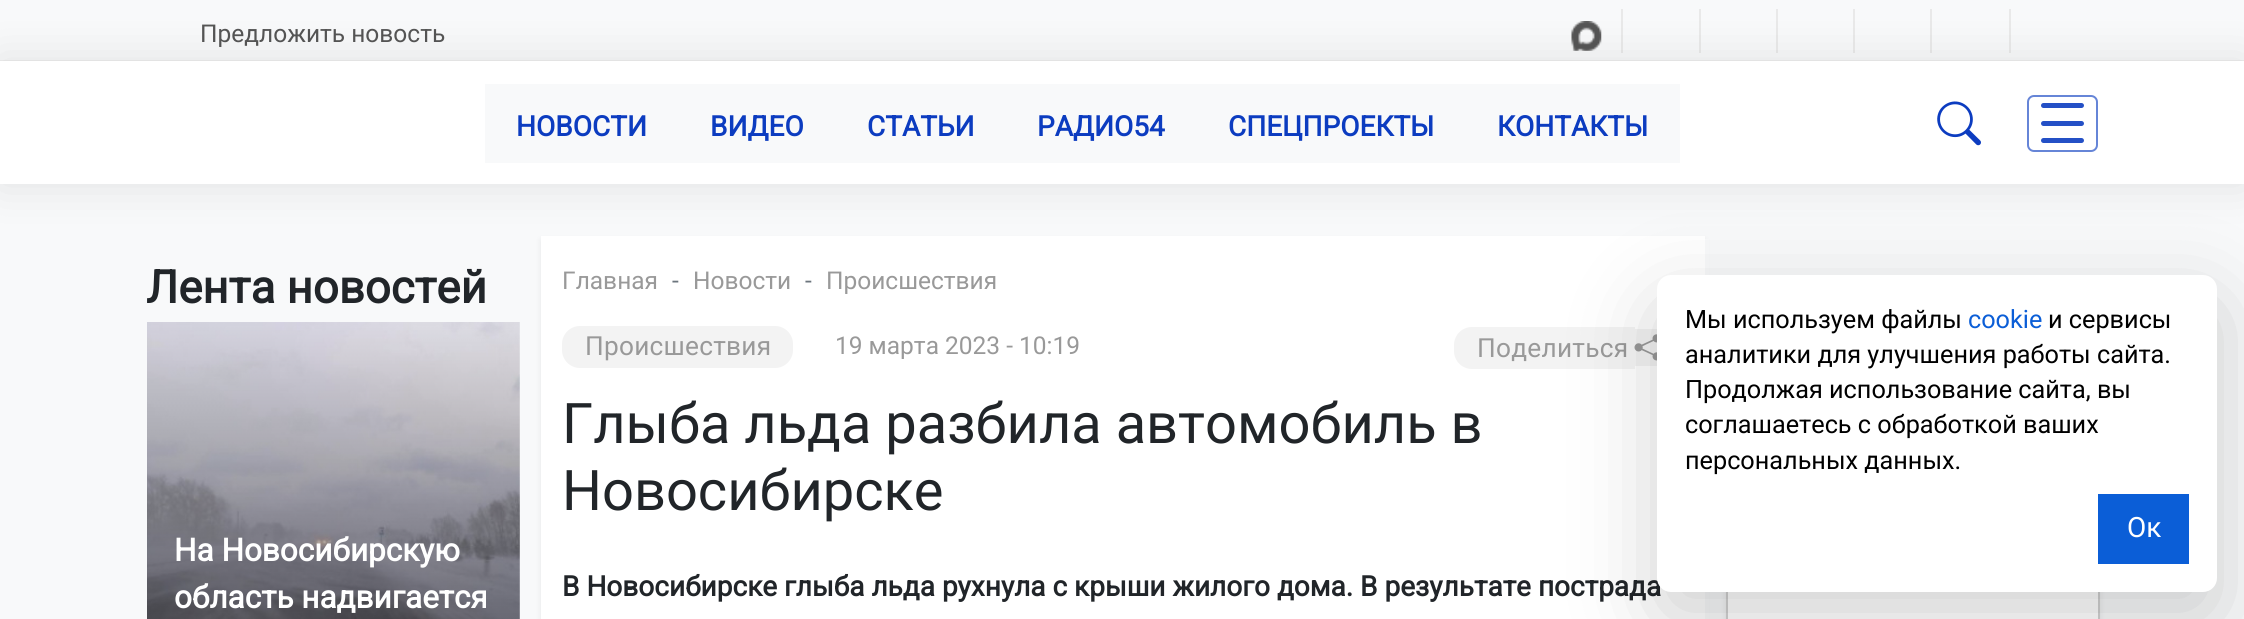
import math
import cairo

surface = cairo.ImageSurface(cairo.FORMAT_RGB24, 2244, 619)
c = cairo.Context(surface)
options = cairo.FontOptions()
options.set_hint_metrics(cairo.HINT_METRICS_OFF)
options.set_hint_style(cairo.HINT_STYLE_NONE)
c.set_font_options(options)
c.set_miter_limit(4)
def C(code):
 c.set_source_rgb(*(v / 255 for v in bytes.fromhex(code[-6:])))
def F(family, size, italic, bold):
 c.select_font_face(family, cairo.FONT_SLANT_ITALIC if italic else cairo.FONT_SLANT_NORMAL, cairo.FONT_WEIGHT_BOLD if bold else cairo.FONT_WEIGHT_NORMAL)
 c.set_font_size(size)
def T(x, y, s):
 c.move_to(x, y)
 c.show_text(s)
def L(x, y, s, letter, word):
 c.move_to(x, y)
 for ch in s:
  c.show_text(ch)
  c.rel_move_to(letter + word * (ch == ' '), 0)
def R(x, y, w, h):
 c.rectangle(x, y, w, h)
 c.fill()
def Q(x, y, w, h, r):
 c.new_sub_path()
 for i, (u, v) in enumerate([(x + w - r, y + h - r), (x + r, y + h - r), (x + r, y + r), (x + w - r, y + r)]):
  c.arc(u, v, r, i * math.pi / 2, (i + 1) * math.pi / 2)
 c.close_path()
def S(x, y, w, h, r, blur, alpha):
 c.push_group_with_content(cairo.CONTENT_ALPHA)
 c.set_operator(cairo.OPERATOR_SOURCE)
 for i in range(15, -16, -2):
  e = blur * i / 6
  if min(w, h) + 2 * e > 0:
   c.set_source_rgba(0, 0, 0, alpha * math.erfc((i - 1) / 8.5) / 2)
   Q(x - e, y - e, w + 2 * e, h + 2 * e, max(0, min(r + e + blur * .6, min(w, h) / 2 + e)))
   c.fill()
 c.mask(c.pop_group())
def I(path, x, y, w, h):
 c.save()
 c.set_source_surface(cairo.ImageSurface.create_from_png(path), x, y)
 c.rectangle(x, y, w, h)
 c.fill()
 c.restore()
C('f8f9fa')
c.paint()
C('eeeeee')
R(0,60,2244,1)
F('Roboto',24.5,0,0)
C('555555')
T(200,42,'Предложить новость')
I('1.png',1571,21,31,30)
C('e9e9e9')
R(1621,9,2,44)
R(1699,9,2,44)
R(1776,9,2,44)
R(1853,9,2,44)
R(1930,9,2,44)
R(2009,9,2,44)
C('000000')
S(541,240,1164,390,0,3.5,.07)
C('ffffff')
R(541,236,1164,383)
C('f8f9fa')
R(1705,239,4,380)
C('000000')
S(0,61,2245,123,0,22,.1)
C('ffffff')
R(0,61,2244,123)
C('f8f9fa')
R(485,84,1195,79)
F('Roboto',28,0,1)
C('0c3cc0')
T(516,136,'НОВОСТИ')
T(710,136,'ВИДЕО')
T(867,136,'СТАТЬИ')
T(1037,136,'РАДИО54')
T(1228,136,'СПЕЦПРОЕКТЫ')
T(1497,136,'КОНТАКТЫ')
I('2.png',1937,101,44,45)
Q(2028,96,69,55,6)
C('6685d7')
c.stroke()
C('2450c6')
Q(2041,121,43,5,2.5)
c.fill()
Q(2041,103,43,5,2.5)
c.fill()
Q(2041,138,43,5,2.5)
c.fill()
F('Roboto',45.5,0,1)
C('212529')
T(146,303,'Лента новостей')
I('3.png',147,322,373,297)
F('Roboto',31.5,0,1)
C('ffffff')
T(174,561,'На Новосибирскую')
T(174,608,'область надвигается')
F('Roboto',24.5,0,0)
C('999999')
T(562,289,'Главная')
C('6c757d')
T(672,289,'-')
C('999999')
T(693,289,'Новости')
C('6c757d')
T(805,289,'-')
C('999999')
T(826,289,'Происшествия')
C('f3f3f3')
Q(562,326,231,42,18)
c.fill()
F('Roboto',26.25,0,0)
C('999999')
L(585,355,'Происшествия',.25,0)
F('Roboto',24.5,0,0)
T(835,354,'19 марта 2023 - 10:19')
C('f3f3f3')
c.new_path()
c.move_to(1472,327)
c.line_to(1635,327)
c.line_to(1635,369)
c.line_to(1472,369)
c.curve_to(1462,369,1454,361,1454,351)
c.line_to(1454,345)
c.curve_to(1454,335,1462,327,1472,327)
c.close_path()
c.fill()
R(1635,329,22,37)
F('Roboto',26.25,0,0)
C('999999')
L(1477,357,'Поделиться',.25,0)
I('4.png',1634,334,23,27)
F('Roboto',56,0,0)
C('212529')
T(562,443,'Глыба льда разбила автомобиль в')
T(562,510,'Новосибирске')
F('Roboto',28,0,1)
T(562,596,'В Новосибирске глыба льда рухнула с крыши жилого дома. В результате пострада')
C('000000')
S(1726,326,374,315,11,3.5,.07)
C('ffffff')
R(1726,592,374,27)
c.rectangle(1727,323,372,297)
c.set_source_rgba(0,0,0,0.18)
c.stroke()
C('000000')
S(1657,303,560,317,14,42,.18)
C('ffffff')
Q(1657,275,560,317,14)
c.fill()
F('Roboto',25.25,0,0)
C('000000')
T(1685,328,'Мы используем файлы')
C('0b5ed7')
T(1968,328,'cookie')
C('000000')
T(2048,328,'и сервисы')
T(1685,363,'аналитики для улучшения работы сайта.')
T(1685,398,'Продолжая использование сайта, вы')
T(1685,433,'соглашаетесь с обработкой ваших')
T(1685,469,'персональных данных.')
C('0b5ed7')
R(2098,494,91,70)
F('Roboto',28,0,0)
C('ffffff')
T(2127,537,'Ок')
surface.write_to_png('o.png')
